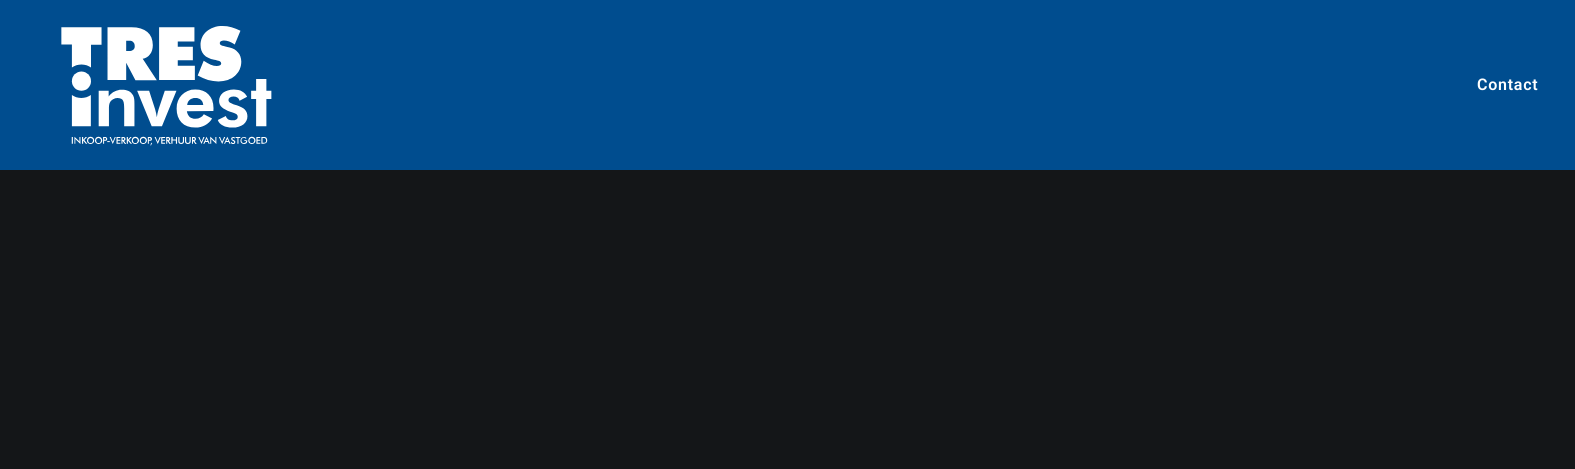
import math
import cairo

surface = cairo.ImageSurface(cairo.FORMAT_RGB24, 1575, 469)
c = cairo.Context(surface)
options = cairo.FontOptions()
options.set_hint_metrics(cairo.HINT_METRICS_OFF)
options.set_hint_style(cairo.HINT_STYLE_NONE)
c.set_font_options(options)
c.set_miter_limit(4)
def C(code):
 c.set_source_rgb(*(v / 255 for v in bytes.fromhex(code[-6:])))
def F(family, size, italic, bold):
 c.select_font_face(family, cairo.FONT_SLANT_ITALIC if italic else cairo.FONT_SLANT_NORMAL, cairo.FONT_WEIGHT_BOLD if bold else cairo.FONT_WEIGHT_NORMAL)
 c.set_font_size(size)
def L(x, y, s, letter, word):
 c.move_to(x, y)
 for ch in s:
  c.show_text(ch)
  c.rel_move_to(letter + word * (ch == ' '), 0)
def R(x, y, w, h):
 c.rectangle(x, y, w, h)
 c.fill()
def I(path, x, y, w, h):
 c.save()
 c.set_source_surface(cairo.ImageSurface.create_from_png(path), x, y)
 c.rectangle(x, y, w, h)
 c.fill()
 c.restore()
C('141618')
c.paint()
C('004d8f')
R(0,0,1575,170)
I('1.png',61,26,211,120)
F('Roboto SemiBold',16,0,0)
C('ffffff')
L(1477,90,'Contact',.75,0)
surface.write_to_png('o.png')
